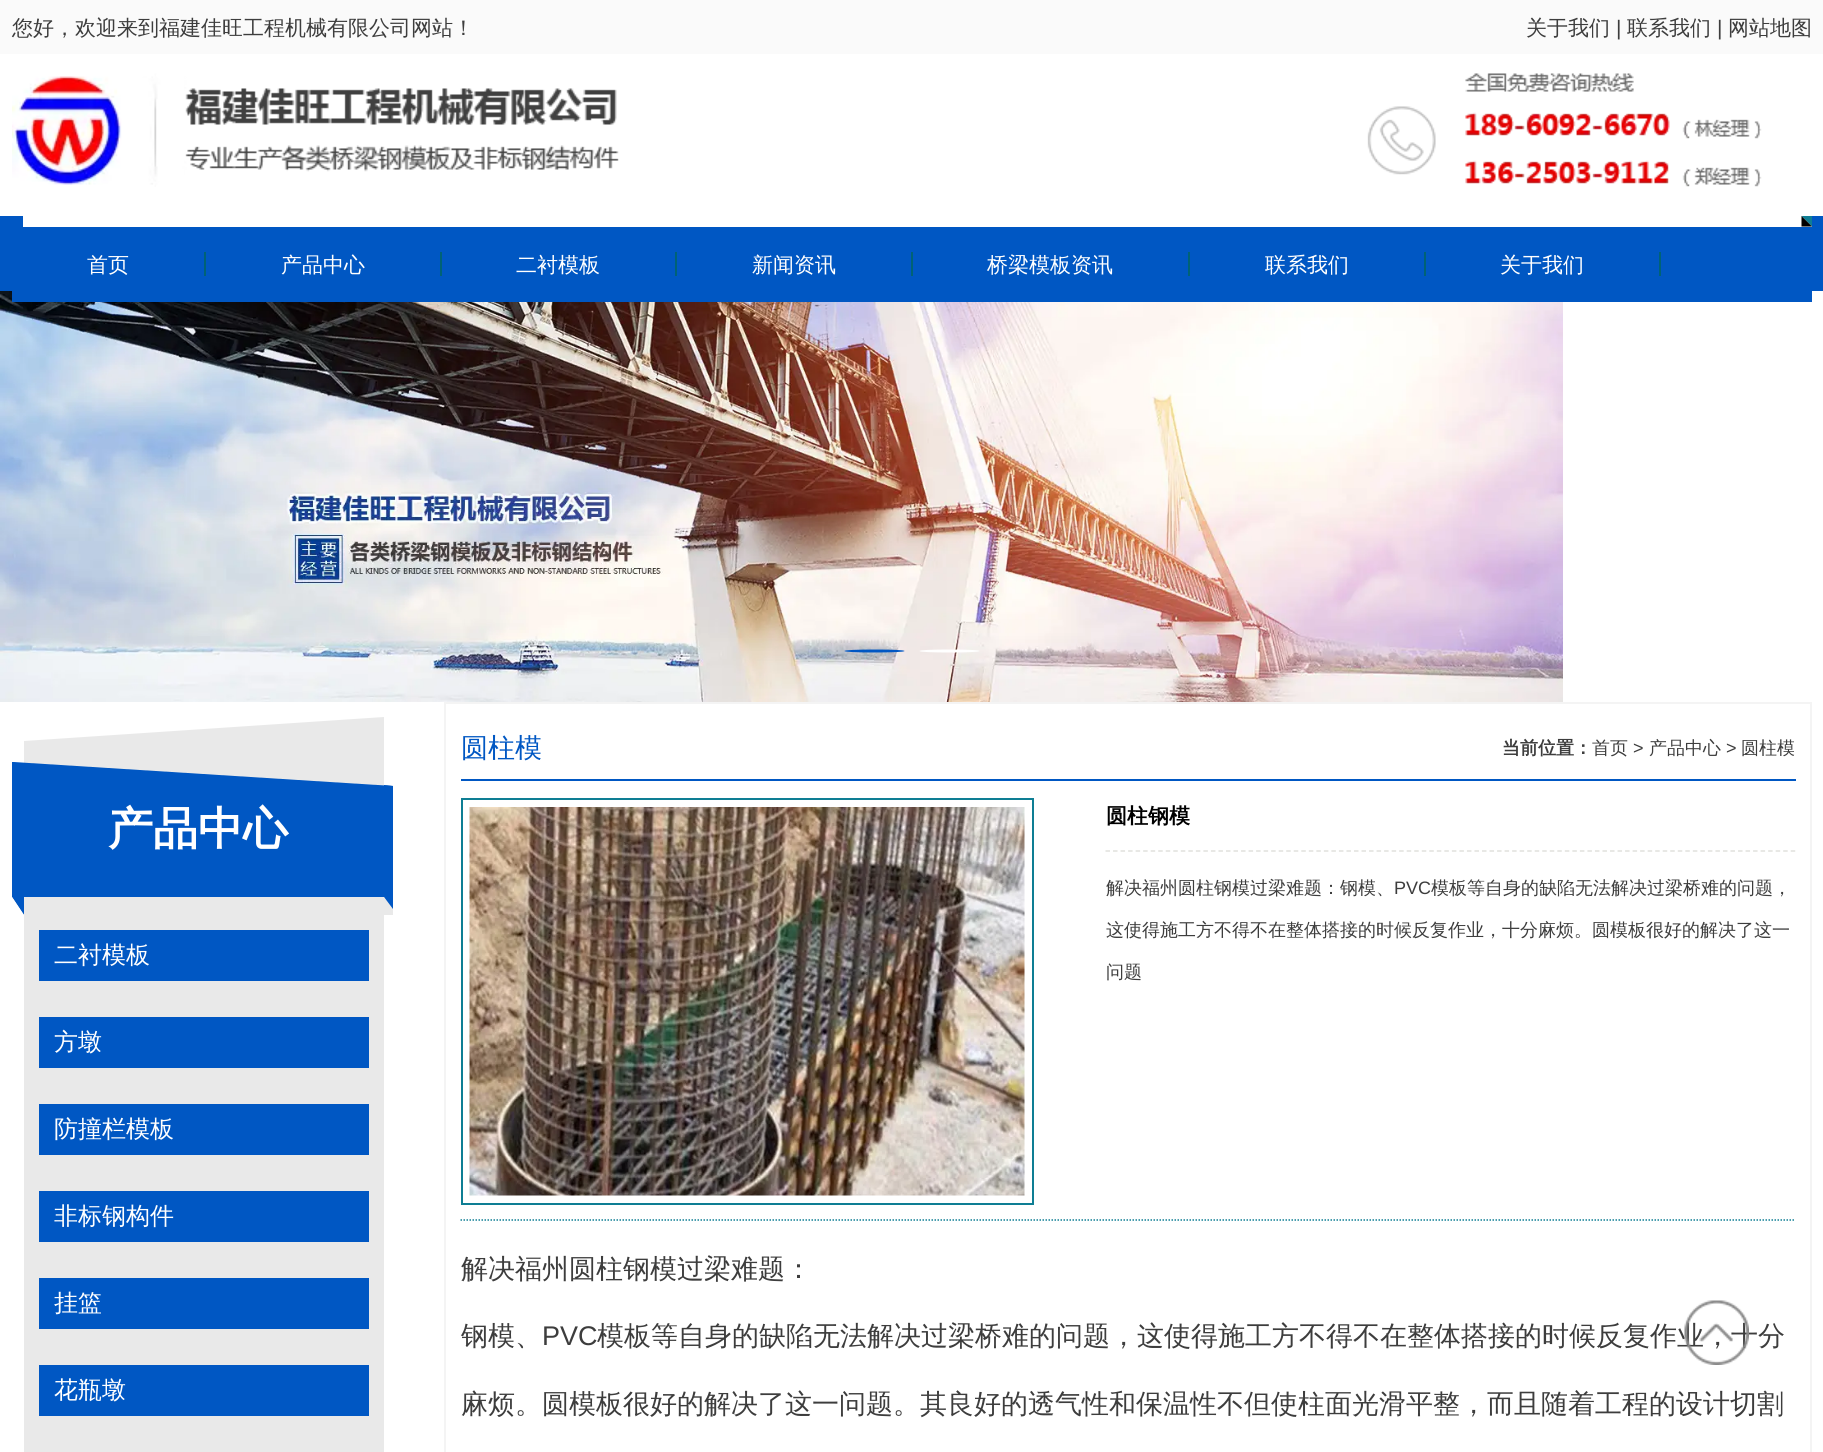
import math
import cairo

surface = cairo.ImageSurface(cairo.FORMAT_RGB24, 1823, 1452)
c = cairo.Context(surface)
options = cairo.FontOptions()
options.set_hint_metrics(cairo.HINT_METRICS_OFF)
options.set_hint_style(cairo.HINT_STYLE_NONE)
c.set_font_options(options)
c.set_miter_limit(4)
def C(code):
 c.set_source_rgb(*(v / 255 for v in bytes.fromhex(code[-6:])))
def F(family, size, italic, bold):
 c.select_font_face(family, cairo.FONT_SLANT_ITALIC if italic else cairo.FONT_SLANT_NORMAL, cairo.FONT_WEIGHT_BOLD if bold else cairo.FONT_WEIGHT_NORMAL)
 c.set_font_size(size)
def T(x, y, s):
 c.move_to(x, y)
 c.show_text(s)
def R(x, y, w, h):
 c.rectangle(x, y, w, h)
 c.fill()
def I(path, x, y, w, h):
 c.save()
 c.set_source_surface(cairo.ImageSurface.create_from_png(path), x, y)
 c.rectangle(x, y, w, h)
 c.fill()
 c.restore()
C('ffffff')
c.paint()
C('fafafa')
R(0,0,1823,54)
F('WenQuanYi Zen Hei Medium',21,0,0)
C('3d3d3d')
T(12,35,'您好，欢迎来到福建佳旺工程机械有限公司网站！')
T(1526,35,'关于我们')
F('Liberation Sans',21,0,0)
T(1616,35,'|')
F('WenQuanYi Zen Hei Medium',21,0,0)
T(1627,35,'联系我们')
F('Liberation Sans',21,0,0)
T(1717,35,'|')
F('WenQuanYi Zen Hei Medium',21,0,0)
T(1728,35,'网站地图')
I('1.png',12,73,1750,114)
C('0057c3')
R(0,216,1823,75)
I('2.png',0,291,1563,411)
R(12,291,1800,11)
C('ffffff')
R(23,216,1789,11)
C('0e7e94')
c.new_path()
c.move_to(1812,216)
c.line_to(1812,226.5)
c.line_to(1801.5,216)
c.close_path()
c.fill()
C('000000')
c.new_path()
c.move_to(1812,226.5)
c.line_to(1801.5,226.5)
c.line_to(1801.5,216)
c.close_path()
c.fill()
C('ffffff')
T(87,272,'首页')
C('006275')
R(204,252,2,24)
C('ffffff')
T(281,272,'产品中心')
C('006275')
R(440,252,2,24)
C('ffffff')
T(516,272,'二衬模板')
C('006275')
R(675,252,2,24)
C('ffffff')
T(752,272,'新闻资讯')
C('006275')
R(911,252,2,24)
C('ffffff')
T(987,272,'桥梁模板资讯')
C('006275')
R(1188,252,2,24)
C('ffffff')
T(1265,272,'联系我们')
C('006275')
R(1424,252,2,24)
C('ffffff')
T(1500,272,'关于我们')
C('006275')
R(1659,252,2,24)
C('0057c3')
c.new_path()
c.move_to(874.5,649.5)
c.curve_to(891,649.5,904.5,650,904.5,651)
c.curve_to(904.5,652,891,652.5,874.5,652.5)
c.curve_to(858,652.5,844.5,652,844.5,651)
c.curve_to(844.5,650,858,649.5,874.5,649.5)
c.close_path()
c.fill()
C('ffffff')
c.new_path()
c.move_to(949.5,649.5)
c.curve_to(966,649.5,979.5,650,979.5,651)
c.curve_to(979.5,652,966,652.5,949.5,652.5)
c.curve_to(933,652.5,919.5,652,919.5,651)
c.curve_to(919.5,650,933,649.5,949.5,649.5)
c.close_path()
c.fill()
C('e9e9e9')
c.new_path()
c.move_to(24,741)
c.line_to(24,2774)
c.line_to(384,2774)
c.line_to(384,717)
c.close_path()
c.fill()
C('0057c3')
c.new_path()
c.move_to(12,762)
c.line_to(12,915)
c.line_to(393,915)
c.line_to(393,786)
c.line_to(13,762)
c.close_path()
c.fill()
c.new_path()
c.move_to(393,786)
c.line_to(384,785)
c.line_to(384,897)
c.line_to(393,915)
c.close_path()
c.fill()
C('e9e9e9')
c.new_path()
c.move_to(12,897)
c.line_to(12,915)
c.line_to(393,915)
c.line_to(384,897)
c.close_path()
c.fill()
F('WenQuanYi Zen Hei',45,0,1)
C('ffffff')
T(108,844,'产品中心')
C('0057c3')
c.new_path()
c.move_to(24,897)
c.line_to(24,915)
c.line_to(12,897)
c.close_path()
c.fill()
C('ffffff')
c.new_path()
c.move_to(12,897)
c.line_to(12,915)
c.line_to(24,915)
c.close_path()
c.fill()
C('0057c3')
c.new_path()
c.move_to(384,897)
c.line_to(393,897)
c.line_to(393,909)
c.close_path()
c.fill()
C('e9e9e9')
R(384,909,9,6)
c.new_path()
c.move_to(390,915)
c.line_to(384,915)
c.line_to(384,897)
c.line_to(393,909)
c.close_path()
c.fill()
C('0057c3')
R(39,930,330,51)
F('WenQuanYi Zen Hei Medium',24,0,0)
C('ffffff')
T(54,963,'二衬模板')
C('0057c3')
R(39,1017,330,51)
C('ffffff')
T(54,1050,'方墩')
C('0057c3')
R(39,1104,330,51)
C('ffffff')
T(54,1137,'防撞栏模板')
C('0057c3')
R(39,1191,330,51)
C('ffffff')
T(54,1224,'非标钢构件')
C('0057c3')
R(39,1278,330,51)
C('ffffff')
T(54,1311,'挂篮')
C('0057c3')
R(39,1365,330,51)
C('ffffff')
T(54,1398,'花瓶墩')
c.rectangle(445,703,1366,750)
C('f4f4f4')
c.stroke()
C('0057c3')
R(461,779,1335,2)
F('WenQuanYi Zen Hei Medium',27,0,0)
T(461,757,'圆柱模')
F('WenQuanYi Zen Hei',18,0,1)
C('3d3d3d')
T(1502,754,'当前位置：')
F('WenQuanYi Zen Hei Medium',18,0,0)
T(1592,754,'首页')
F('Liberation Sans',18,0,0)
T(1633,754,'>')
F('WenQuanYi Zen Hei Medium',18,0,0)
T(1649,754,'产品中心')
F('Liberation Sans',18,0,0)
T(1726,754,'>')
F('WenQuanYi Zen Hei Medium',18,0,0)
T(1741,754,'圆柱模')
c.new_path()
c.move_to(460.5,1220)
c.line_to(1795.5,1220)
C('0e7e94')
c.set_line_width(1.5)
c.set_dash([1.5,1.5])
c.stroke()
c.rectangle(462,799,571,405)
c.set_line_width(2)
c.set_dash([])
c.stroke()
I('3.png',469,807,556,389)
c.new_path()
c.move_to(1105.5,851)
c.line_to(1795.5,851)
C('e0e1dc')
c.set_line_width(1.5)
c.set_dash([4.5,3.03])
c.stroke()
F('WenQuanYi Zen Hei',21,0,1)
C('000000')
T(1106,823,'圆柱钢模')
F('WenQuanYi Zen Hei Medium',18,0,0)
C('3d3d3d')
T(1106,894,'解决福州圆柱钢模过梁难题：钢模、')
F('Liberation Sans',18,0,0)
T(1394,894,'PVC')
F('WenQuanYi Zen Hei Medium',18,0,0)
T(1431,894,'模板等自身的缺陷无法解决过梁桥难的问题，')
T(1106,936,'这使得施工方不得不在整体搭接的时候反复作业，十分麻烦。圆模板很好的解决了这一')
T(1106,978,'问题')
F('WenQuanYi Zen Hei Medium',27,0,0)
T(461,1278,'解决福州圆柱钢模过梁难题：')
T(461,1345,'钢模、')
F('Liberation Sans',27,0,0)
T(542,1345,'PVC')
F('WenQuanYi Zen Hei Medium',27,0,0)
T(597,1345,'模板等自身的缺陷无法解决过梁桥难的问题，这使得施工方不得不在整体搭接的时候反复作业，十分')
T(461,1413,'麻烦。圆模板很好的解决了这一问题。其良好的透气性和保温性不但使柱面光滑平整，而且随着工程的设计切割')
I('4.png',1684,1300,65,65)
surface.write_to_png('o.png')
